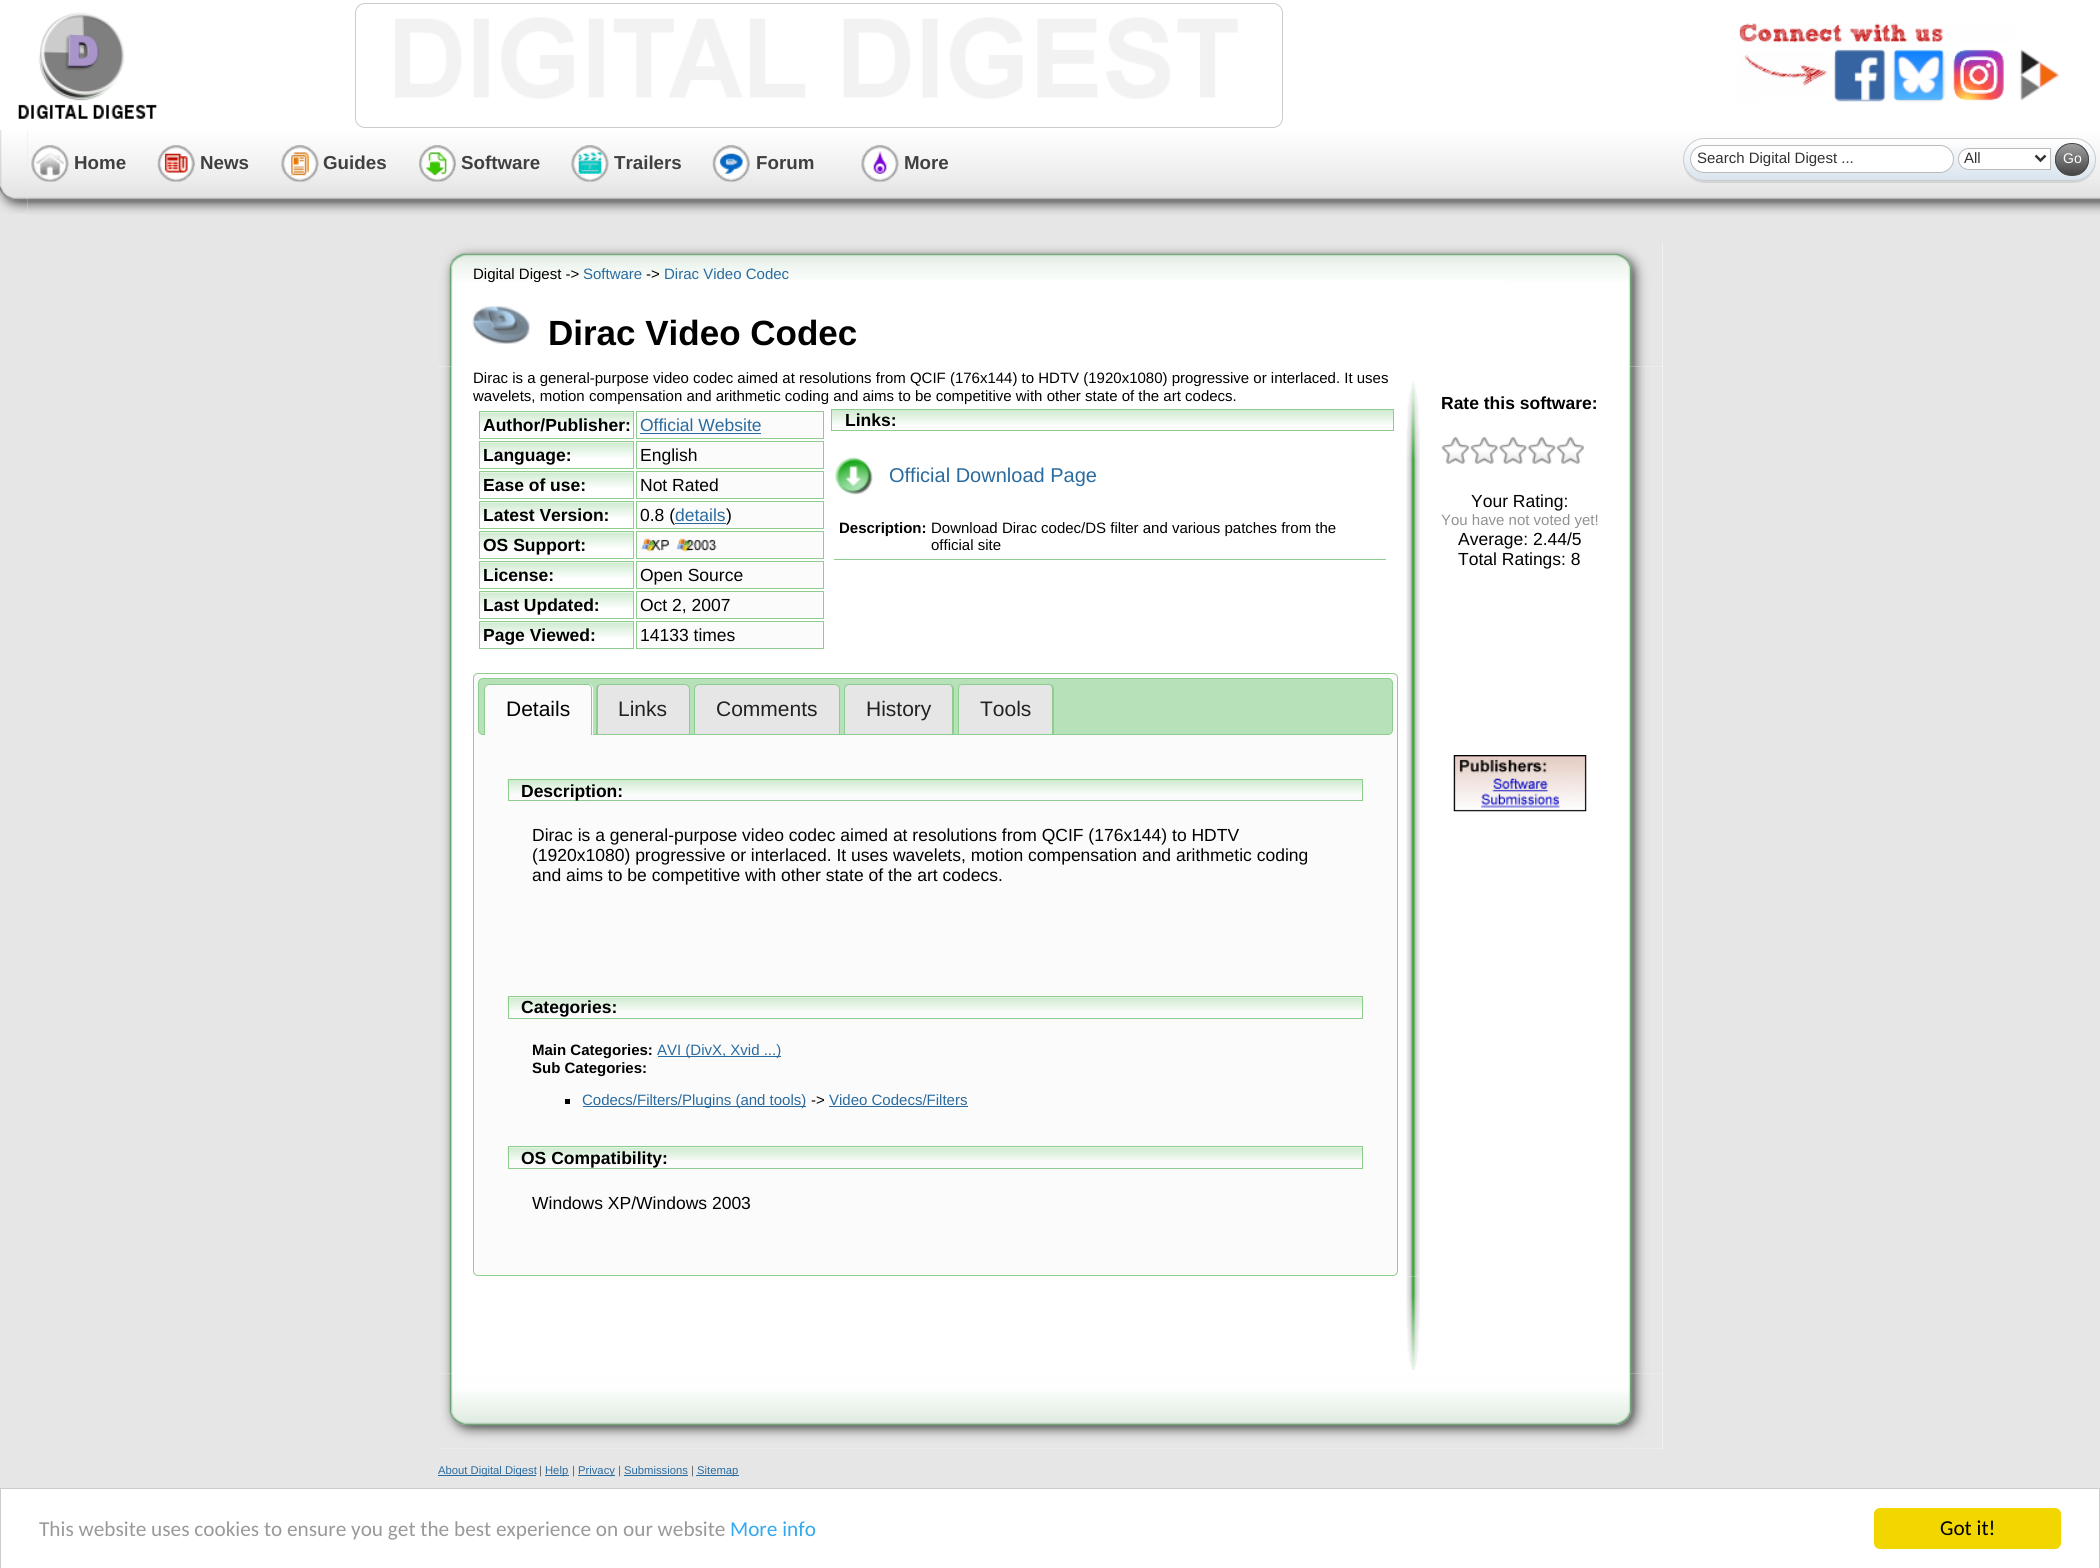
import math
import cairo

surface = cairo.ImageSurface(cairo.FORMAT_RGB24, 2100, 1568)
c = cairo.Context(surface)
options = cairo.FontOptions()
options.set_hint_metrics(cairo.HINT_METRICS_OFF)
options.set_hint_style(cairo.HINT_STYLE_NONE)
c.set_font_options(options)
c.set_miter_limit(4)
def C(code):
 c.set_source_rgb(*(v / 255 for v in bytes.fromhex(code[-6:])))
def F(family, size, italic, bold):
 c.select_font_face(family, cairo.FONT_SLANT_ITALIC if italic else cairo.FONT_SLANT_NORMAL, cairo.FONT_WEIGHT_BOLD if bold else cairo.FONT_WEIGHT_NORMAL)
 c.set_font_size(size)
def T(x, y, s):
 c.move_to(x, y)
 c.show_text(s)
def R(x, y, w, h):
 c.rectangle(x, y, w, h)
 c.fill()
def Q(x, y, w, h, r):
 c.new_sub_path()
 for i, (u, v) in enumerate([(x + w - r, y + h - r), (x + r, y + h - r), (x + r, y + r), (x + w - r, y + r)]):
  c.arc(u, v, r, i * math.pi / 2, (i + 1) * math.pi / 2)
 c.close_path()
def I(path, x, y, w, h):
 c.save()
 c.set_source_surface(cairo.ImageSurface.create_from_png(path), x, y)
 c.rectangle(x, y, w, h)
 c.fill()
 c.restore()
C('e6e6e6')
c.paint()
I('1.png',27,130,1,30)
C('ffffff')
R(0,0,2100,130)
I('2.png',18,12,139,107)
I('3.png',395,17,843,82)
Q(355.5,3.5,927,124,9.5)
C('cbcbcb')
c.set_line_width(1)
c.stroke()
I('4.png',1738,23,321,79)
I('5.png',0,130,28,84)
I('6.png',27,130,2073,85)
I('7.png',31,145,38,38)
F('Liberation Sans',18.75,0,1)
C('404040')
T(74,169,'Home')
I('8.png',157,145,38,38)
T(200,169,'News')
I('9.png',281,145,38,38)
T(323,169,'Guides')
I('10.png',419,145,37,38)
T(461,169,'Software')
I('11.png',571,145,38,38)
T(614,169,'Trailers')
I('12.png',712,145,38,38)
T(756,169,'Forum')
I('13.png',861,145,38,38)
T(904,169,'More')
c.set_source_rgba(0,0,0,0.1)
c.new_path()
c.move_to(1684,167)
c.curve_to(1686,176,1695,183,1705,183)
c.line_to(2074,183)
c.curve_to(2085,183,2095,174,2096,164)
c.curve_to(2094,174,2085,181,2074,181)
c.line_to(1704,181)
c.curve_to(1695,181,1687,175,1684,167)
c.close_path()
c.fill()
c.save()
Q(1683,138,413,43,21.5)
c.clip()
gradient = cairo.LinearGradient(1684,139,1684,180)
gradient.add_color_stop_rgba(0,1,1,1,1)
gradient.add_color_stop_rgba(1,0.851,0.894,0.933,1)
c.set_source(gradient)
R(1683,139,413,41)
c.restore()
Q(1683.5,138.5,412,42,21)
C('cbcbcb')
c.stroke()
C('ffffff')
Q(1690.5,145.5,263,27,13.5)
c.fill_preserve()
C('bcbbbb')
c.stroke()
F('Liberation Sans',15,0,0)
C('323232')
T(1697,163,'Search Digital Digest ...')
C('ffffff')
c.new_path()
c.move_to(1969,148.5)
c.line_to(2050.5,148.5)
c.line_to(2050.5,169.5)
c.line_to(1969,169.5)
c.curve_to(1963,169.5,1958.5,165,1958.5,159)
c.curve_to(1958.5,153,1963,148.5,1969,148.5)
c.close_path()
c.fill_preserve()
C('bcbbbb')
c.stroke()
c.new_path()
c.move_to(2035.5,155.5)
c.line_to(2040.5,160.5)
c.line_to(2045.5,155.5)
C('323232')
c.set_line_width(2.5)
c.stroke()
T(1964,163,'All')
c.save()
Q(2055,143,34,33,16.5)
c.clip()
gradient = cairo.LinearGradient(2056,144,2056,175)
gradient.add_color_stop_rgba(0,0.62,0.62,0.62,1)
gradient.add_color_stop_rgba(1,0.271,0.271,0.271,1)
c.set_source(gradient)
R(2055,144,34,31)
c.restore()
Q(2055.5,143.5,33,32,16)
C('494949')
c.set_line_width(1)
c.stroke()
F('Liberation Sans',14,0,0)
C('ffffff')
T(2063,163,'Go')
R(1662,243,1,123)
I('14.png',438,243,1225,123)
F('Liberation Sans',15,0,0)
C('000000')
T(473,279,'Digital Digest ->')
C('2a6b9f')
T(583,279,'Software')
C('000000')
T(646,279,'->')
C('2a6b9f')
T(664,279,'Dirac Video Codec')
I('15.png',472,306,58,38)
F('Liberation Sans',35,0,1)
C('000000')
T(548,345,'Dirac Video Codec')
C('ffffff')
R(438,366,1225,1083)
I('16.png',438,366,1225,1008)
F('Liberation Sans',15,0,0)
C('000000')
T(473,383,'Dirac is a general-purpose video codec aimed at resolutions from QCIF (176x144) to HDTV (1920x1080) progressive or interlaced. It uses')
T(473,401,'wavelets, motion compensation and arithmetic coding and aims to be competitive with other state of the art codecs.')
I('17.png',478,412,155,16)
c.rectangle(479.5,411.5,154,27)
C('8fcd8f')
c.stroke()
F('Liberation Sans',17.5,0,1)
C('000000')
T(483,431,'Author/Publisher:')
C('fbfbfb')
c.rectangle(636.5,411.5,187,27)
c.fill_preserve()
C('8fcd8f')
c.stroke()
F('Liberation Sans',17.5,0,0)
C('2a6b9f')
T(640,431,'Official Website')
R(640,433,121,1)
I('18.png',478,442,155,16)
c.rectangle(479.5,441.5,154,27)
C('8fcd8f')
c.stroke()
F('Liberation Sans',17.5,0,1)
C('000000')
T(483,461,'Language:')
C('fbfbfb')
c.rectangle(636.5,441.5,187,27)
c.fill_preserve()
C('8fcd8f')
c.stroke()
F('Liberation Sans',17.5,0,0)
C('000000')
T(640,461,'English')
I('19.png',478,472,155,16)
c.rectangle(479.5,471.5,154,27)
C('8fcd8f')
c.stroke()
F('Liberation Sans',17.5,0,1)
C('000000')
T(483,491,'Ease of use:')
C('fbfbfb')
c.rectangle(636.5,471.5,187,27)
c.fill_preserve()
C('8fcd8f')
c.stroke()
F('Liberation Sans',17.5,0,0)
C('000000')
T(640,491,'Not Rated')
I('19.png',478,502,155,16)
c.rectangle(479.5,501.5,154,27)
C('8fcd8f')
c.stroke()
F('Liberation Sans',17.5,0,1)
C('000000')
T(483,521,'Latest Version:')
C('fbfbfb')
c.rectangle(636.5,501.5,187,27)
c.fill_preserve()
C('8fcd8f')
c.stroke()
F('Liberation Sans',17.5,0,0)
C('000000')
T(640,521,'0.8 (')
C('2a6b9f')
T(675,521,'details')
R(675,523,51,1)
C('000000')
T(726,521,')')
I('19.png',478,532,155,16)
c.rectangle(479.5,531.5,154,27)
C('8fcd8f')
c.stroke()
F('Liberation Sans',17.5,0,1)
C('000000')
T(483,551,'OS Support:')
C('fbfbfb')
c.rectangle(636.5,531.5,187,27)
c.fill_preserve()
C('8fcd8f')
c.stroke()
I('20.png',641,538,28,14)
I('21.png',676,538,41,14)
I('22.png',478,562,155,16)
c.rectangle(479.5,561.5,154,27)
c.stroke()
C('000000')
T(483,581,'License:')
C('fbfbfb')
c.rectangle(636.5,561.5,187,27)
c.fill_preserve()
C('8fcd8f')
c.stroke()
F('Liberation Sans',17.5,0,0)
C('000000')
T(640,581,'Open Source')
I('19.png',478,592,155,16)
c.rectangle(479.5,591.5,154,27)
C('8fcd8f')
c.stroke()
F('Liberation Sans',17.5,0,1)
C('000000')
T(483,611,'Last Updated:')
C('fbfbfb')
c.rectangle(636.5,591.5,187,27)
c.fill_preserve()
C('8fcd8f')
c.stroke()
F('Liberation Sans',17.5,0,0)
C('000000')
T(640,611,'Oct 2, 2007')
I('19.png',478,622,155,16)
c.rectangle(479.5,621.5,154,27)
C('8fcd8f')
c.stroke()
F('Liberation Sans',17.5,0,1)
C('000000')
T(483,641,'Page Viewed:')
C('fbfbfb')
c.rectangle(636.5,621.5,187,27)
c.fill_preserve()
C('8fcd8f')
c.stroke()
F('Liberation Sans',17.5,0,0)
C('000000')
T(640,641,'14133 times')
I('23.png',832,410,561,15)
c.rectangle(831.5,409.5,562,21)
C('8fcd8f')
c.stroke()
F('Liberation Sans',17.5,0,1)
C('000000')
T(845,426,'Links:')
C('8fcd8f')
R(834,559,552,1)
I('24.png',835,457,38,38)
F('Liberation Sans',20,0,0)
C('2a6b9f')
T(889,482,'Official Download Page')
F('Liberation Sans',15,0,1)
C('000000')
T(839,533,'Description:')
F('Liberation Sans',15,0,0)
T(931,533,'Download Dirac codec/DS filter and various patches from the')
T(931,550,'official site')
C('fbfbfb')
Q(473.5,673.5,924,602,4.5)
c.fill_preserve()
C('8fcd8f')
c.stroke()
C('b7e1b8')
Q(478.5,678.5,914,56,4.5)
c.fill_preserve()
C('8fcd8f')
c.stroke()
C('fbfbfb')
c.new_path()
c.move_to(489,684)
c.line_to(588,684)
c.curve_to(591,684,593,686,593,689)
c.line_to(593,735)
c.line_to(484,735)
c.line_to(484,689)
c.curve_to(484,686,486,684,489,684)
c.close_path()
c.fill()
C('8fcd8f')
c.set_fill_rule(cairo.FILL_RULE_EVEN_ODD)
c.new_path()
c.move_to(489,684)
c.line_to(588,684)
c.curve_to(590,684,592,686,592,689)
c.line_to(592,735)
c.line_to(484,735)
c.line_to(484,689)
c.curve_to(484,686,486,684,489,684)
c.close_path()
c.move_to(489,685)
c.line_to(588,685)
c.curve_to(590,685,591,687,591,689)
c.line_to(591,735)
c.line_to(485,735)
c.line_to(485,689)
c.curve_to(485,687,487,685,489,685)
c.close_path()
c.fill()
F('Liberation Sans',21,0,0)
C('000000')
T(506,716,'Details')
C('e6e6e6')
c.new_path()
c.move_to(601,684)
c.line_to(685,684)
c.curve_to(688,684,690,686,690,689)
c.line_to(690,734)
c.line_to(596,734)
c.line_to(596,689)
c.curve_to(596,686,598,684,601,684)
c.close_path()
c.fill()
C('8fcd8f')
c.new_path()
c.move_to(601,684)
c.line_to(685,684)
c.curve_to(688,684,690,686,690,689)
c.line_to(690,734)
c.line_to(596,734)
c.line_to(596,689)
c.curve_to(596,686,598,684,601,684)
c.close_path()
c.move_to(601,685)
c.line_to(685,685)
c.curve_to(687,685,689,687,689,689)
c.line_to(689,734)
c.line_to(598,734)
c.line_to(598,689)
c.curve_to(598,687,599,685,601,685)
c.close_path()
c.fill()
C('222222')
T(618,716,'Links')
C('e6e6e6')
c.new_path()
c.move_to(699,684)
c.line_to(835,684)
c.curve_to(838,684,840,686,840,689)
c.line_to(840,734)
c.line_to(694,734)
c.line_to(694,689)
c.curve_to(694,686,696,684,699,684)
c.close_path()
c.fill()
C('8fcd8f')
c.new_path()
c.move_to(699,684)
c.line_to(835,684)
c.curve_to(838,684,840,686,840,689)
c.line_to(840,734)
c.line_to(694,734)
c.line_to(694,689)
c.curve_to(694,686,696,684,699,684)
c.close_path()
c.move_to(699,685)
c.line_to(835,685)
c.curve_to(837,685,839,687,839,689)
c.line_to(839,734)
c.line_to(695,734)
c.line_to(695,689)
c.curve_to(695,687,697,685,699,685)
c.close_path()
c.fill()
C('222222')
T(716,716,'Comments')
C('e6e6e6')
c.new_path()
c.move_to(849,684)
c.line_to(949,684)
c.curve_to(952,684,954,686,954,689)
c.line_to(954,734)
c.line_to(844,734)
c.line_to(844,689)
c.curve_to(844,686,846,684,849,684)
c.close_path()
c.fill()
C('8fcd8f')
c.new_path()
c.move_to(849,684)
c.line_to(949,684)
c.curve_to(952,684,954,686,954,689)
c.line_to(954,734)
c.line_to(844,734)
c.line_to(844,689)
c.curve_to(844,686,846,684,849,684)
c.close_path()
c.move_to(849,685)
c.line_to(949,685)
c.curve_to(951,685,952,687,952,689)
c.line_to(952,734)
c.line_to(845,734)
c.line_to(845,689)
c.curve_to(845,687,847,685,849,685)
c.close_path()
c.fill()
C('222222')
T(866,716,'History')
C('e6e6e6')
c.new_path()
c.move_to(963,684)
c.line_to(1049,684)
c.curve_to(1052,684,1054,686,1054,689)
c.line_to(1054,734)
c.line_to(958,734)
c.line_to(958,689)
c.curve_to(958,686,960,684,963,684)
c.close_path()
c.fill()
C('8fcd8f')
c.new_path()
c.move_to(962,684)
c.line_to(1049,684)
c.curve_to(1052,684,1054,686,1054,689)
c.line_to(1054,734)
c.line_to(958,734)
c.line_to(958,689)
c.curve_to(958,686,960,684,962,684)
c.close_path()
c.move_to(962,685)
c.line_to(1049,685)
c.curve_to(1051,685,1052,687,1052,689)
c.line_to(1052,734)
c.line_to(959,734)
c.line_to(959,689)
c.curve_to(959,687,960,685,962,685)
c.close_path()
c.fill()
C('222222')
T(980,716,'Tools')
I('25.png',507,780,855,14)
c.rectangle(508.5,779.5,854,21)
C('8fcd8f')
c.stroke()
F('Liberation Sans',17.5,0,1)
C('000000')
T(521,797,'Description:')
F('Liberation Sans',17.5,0,0)
T(532,841,'Dirac is a general-purpose video codec aimed at resolutions from QCIF (176x144) to HDTV')
T(532,861,'(1920x1080) progressive or interlaced. It uses wavelets, motion compensation and arithmetic coding')
T(532,881,'and aims to be competitive with other state of the art codecs.')
I('26.png',507,997,855,14)
c.rectangle(508.5,996.5,854,22)
C('8fcd8f')
c.stroke()
F('Liberation Sans',17.5,0,1)
C('000000')
T(521,1013,'Categories:')
F('Liberation Sans',15,0,1)
T(532,1055,'Main Categories:')
C('2a6b9f')
R(658,1056,123,1)
F('Liberation Sans',15,0,0)
T(657,1055,'AVI (DivX, Xvid ...)')
F('Liberation Sans',15,0,1)
C('000000')
T(532,1073,'Sub Categories:')
R(565,1099,5,5)
C('2a6b9f')
R(583,1106,223,1)
F('Liberation Sans',15,0,0)
T(582,1105,'Codecs/Filters/Plugins (and tools)')
C('000000')
T(811,1105,'->')
C('2a6b9f')
T(829,1105,'Video Codecs/Filters')
R(829,1106,139,1)
I('27.png',507,1147,855,14)
c.rectangle(508.5,1146.5,854,22)
C('8fcd8f')
c.stroke()
F('Liberation Sans',17.5,0,1)
C('000000')
T(521,1164,'OS Compatibility:')
F('Liberation Sans',17.5,0,0)
T(532,1209,'Windows XP/Windows 2003')
I('28.png',1406,381,14,884)
F('Liberation Sans',17.5,0,1)
T(1441,409,'Rate this software:')
I('29.png',1441,436,29,28)
I('30.png',1470,436,28,28)
I('31.png',1498,436,29,28)
I('32.png',1527,436,29,28)
I('29.png',1556,436,29,28)
F('Liberation Sans',17.5,0,0)
T(1471,507,'Your Rating:')
F('Liberation Sans',15,0,0)
C('929292')
T(1441,525,'You have not voted yet!')
F('Liberation Sans',17.5,0,0)
C('000000')
T(1458,545,'Average: 2.44/5')
T(1458,565,'Total Ratings: 8')
I('33.png',1453,755,134,57)
I('34.png',1406,1265,14,11)
I('35.png',1406,1276,14,94)
I('36.png',438,1373,1225,76)
C('2a6b9f')
R(438,1475,98,1)
F('Liberation Sans',11.25,0,0)
T(438,1474,'About Digital Digest')
C('666666')
T(539,1474,'|')
C('2a6b9f')
R(545,1475,24,1)
T(545,1474,'Help')
C('666666')
T(572,1474,'|')
C('2a6b9f')
R(578,1475,37,1)
T(578,1474,'Privacy')
C('666666')
T(618,1474,'|')
C('2a6b9f')
T(624,1474,'Submissions')
R(624,1475,64,1)
C('666666')
T(691,1474,'|')
C('2a6b9f')
R(696,1475,43,1)
T(697,1474,'Sitemap')
C('ffffff')
c.rectangle(.5,1488.5,2099,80)
c.fill_preserve()
C('cccccc')
c.stroke()
F('Carlito',21.25,0,0)
C('999999')
T(39,1536,'This website uses cookies to ensure you get the best experience on our website')
C('31a8f0')
T(730,1536,'More info')
C('f1d600')
Q(1874,1508,187,41,6)
c.fill()
C('000000')
T(1940,1535,'Got it!')
surface.write_to_png('o.png')
